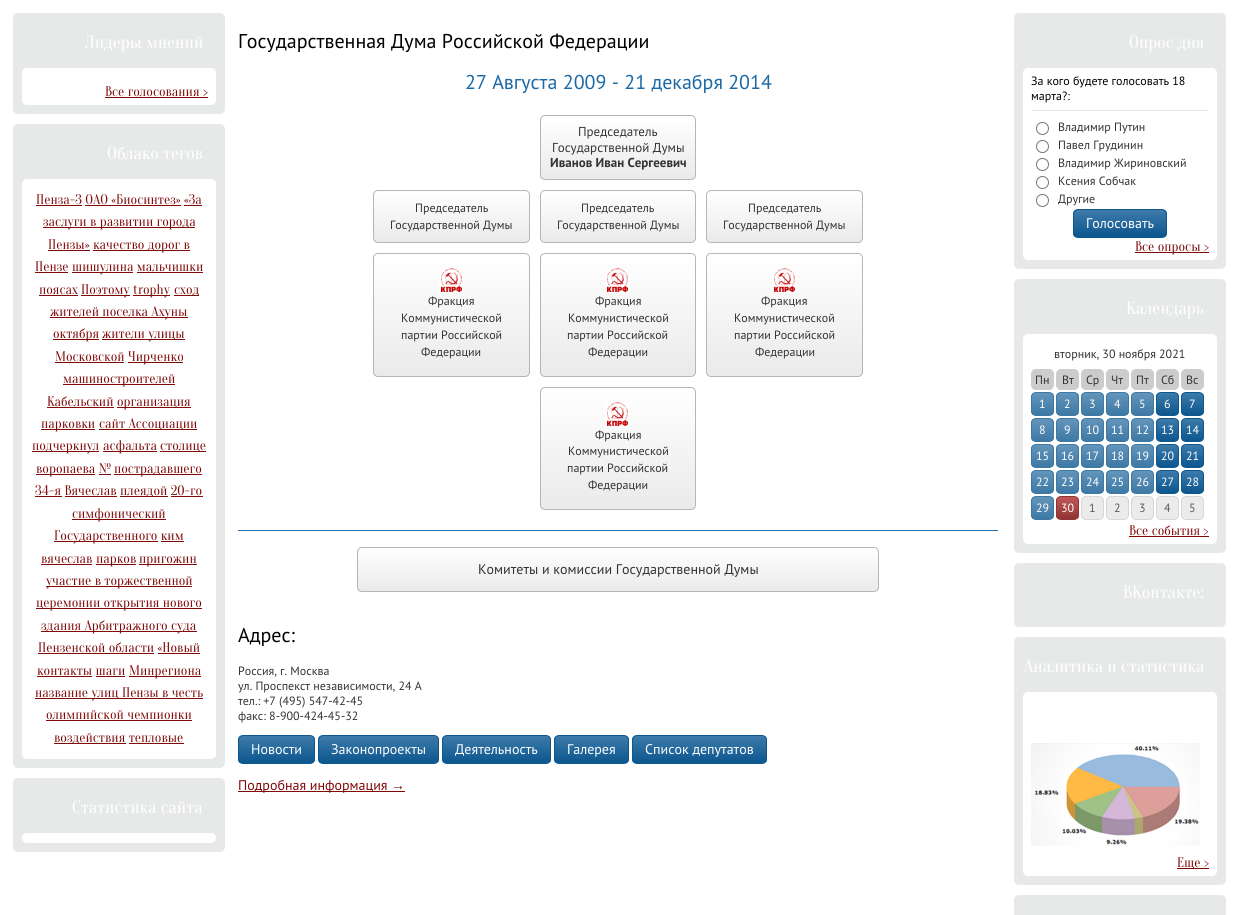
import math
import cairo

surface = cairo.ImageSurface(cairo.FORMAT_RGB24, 1236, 915)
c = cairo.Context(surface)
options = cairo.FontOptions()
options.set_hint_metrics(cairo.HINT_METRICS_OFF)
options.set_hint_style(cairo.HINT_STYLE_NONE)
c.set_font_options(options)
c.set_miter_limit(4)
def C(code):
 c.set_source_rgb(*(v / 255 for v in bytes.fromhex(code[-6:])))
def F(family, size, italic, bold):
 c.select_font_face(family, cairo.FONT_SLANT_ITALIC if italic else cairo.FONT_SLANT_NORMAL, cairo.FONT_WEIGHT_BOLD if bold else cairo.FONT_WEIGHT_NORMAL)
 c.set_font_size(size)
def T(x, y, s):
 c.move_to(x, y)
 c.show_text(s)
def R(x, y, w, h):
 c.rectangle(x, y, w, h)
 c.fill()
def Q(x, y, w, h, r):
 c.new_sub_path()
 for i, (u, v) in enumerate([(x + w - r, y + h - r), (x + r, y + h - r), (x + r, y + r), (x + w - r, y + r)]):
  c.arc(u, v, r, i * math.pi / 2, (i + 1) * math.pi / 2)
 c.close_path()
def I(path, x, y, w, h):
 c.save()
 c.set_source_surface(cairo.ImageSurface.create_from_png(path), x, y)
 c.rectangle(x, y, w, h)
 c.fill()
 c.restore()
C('ffffff')
c.paint()
C('e7e9e9')
Q(13,13,212,101,5)
c.fill()
F('Oranienbaum',18,0,0)
C('ffffff')
T(85,48,'Лидеры мнений')
Q(22,68,194,37,5)
c.fill()
F('Oranienbaum',14,0,0)
C('7e0b0a')
T(105,96,'Все голосования >')
R(105,97,103,1)
C('e7e9e9')
Q(13,124,212,644,5)
c.fill()
F('Oranienbaum',18,0,0)
C('ffffff')
T(107,159,'Облако тегов')
Q(22,179,194,580,5)
c.fill()
F('Oranienbaum',14,0,0)
C('7e0b0a')
T(36,204,'Пенза-3 ОАО «Биосинтез» «За')
R(36,205,46,1)
R(85,205,96,1)
R(43,227,152,1)
T(43,226,'заслуги в развитии города')
R(184,205,18,1)
T(48,249,'Пензы»')
R(48,250,42,1)
R(93,250,97,1)
T(93,249,'качество дорог в')
T(35,271,'Пензе')
R(35,272,33,1)
R(72,272,61,1)
T(72,271,'шишулина мальчишки')
R(137,272,66,1)
T(39,294,'поясах')
R(39,295,39,1)
R(81,295,49,1)
T(81,294,'Поэтому')
R(133,295,37,1)
T(133,294,'trophy')
R(174,295,25,1)
T(174,294,'сход')
R(50,317,138,1)
T(50,316,'жителей поселка Ахуны')
R(53,339,46,1)
T(53,338,'октября')
R(102,339,83,1)
T(102,338,'жители улицы')
T(55,361,'Московской')
R(55,362,69,1)
R(128,362,55,1)
T(128,361,'Чирченко')
R(63,384,112,1)
T(63,383,'машиностроителей')
T(47,406,'Кабельский')
R(47,407,67,1)
R(117,407,74,1)
T(117,406,'организация')
R(41,429,54,1)
T(41,428,'парковки')
R(99,429,98,1)
T(99,428,'сайт Ассоциации')
R(32,451,67,1)
T(32,450,'подчеркнул')
R(103,451,54,1)
T(103,450,'асфальта')
R(160,451,46,1)
T(160,450,'столице')
R(36,474,59,1)
T(36,473,'воропаева №')
R(114,474,88,1)
T(114,473,'пострадавшего')
R(99,474,12,1)
T(35,495,'34-я Вячеслав')
R(35,496,27,1)
R(120,496,48,1)
T(120,495,'плеядой 20-го')
R(65,496,52,1)
R(171,496,32,1)
R(72,519,94,1)
T(72,518,'симфонический')
R(54,541,104,1)
T(54,540,'Государственного ким')
T(41,563,'вячеслав')
R(161,541,23,1)
R(41,564,51,1)
R(96,564,40,1)
T(96,563,'парков')
R(139,564,58,1)
T(139,563,'пригожин')
R(46,586,146,1)
T(46,585,'участие в торжественной')
R(36,608,166,1)
T(36,607,'церемонии открытия нового')
R(41,631,156,1)
T(41,630,'здания Арбитражного суда')
T(38,652,'Пензенской области «Новый')
R(38,653,116,1)
R(158,653,42,1)
T(37,675,'контакты шаги')
R(37,676,55,1)
R(129,676,72,1)
T(129,675,'Минрегиона')
R(96,676,29,1)
R(35,698,168,1)
T(35,697,'название улиц Пензы в честь')
T(46,719,'олимпийской чемпионки')
R(46,720,146,1)
R(54,743,72,1)
T(54,742,'воздействия тепловые')
R(129,743,55,1)
C('e7e9e9')
Q(13,778,212,74,5)
c.fill()
C('ffffff')
Q(22,833,194,10,5)
c.fill()
F('Oranienbaum',18,0,0)
T(72,813,'Статистика сайта')
F('PT Sans',20,0,0)
C('000000')
T(238,48,'Государственная Дума Российской Федерации')
C('1b69a5')
T(465,89,'27 Августа 2009 - 21 декабря 2014')
c.save()
Q(540,115,156,65,5)
c.clip()
gradient = cairo.LinearGradient(618,116,618,179)
gradient.add_color_stop_rgba(0,1,1,1,1)
gradient.add_color_stop_rgba(1,0.918,0.918,0.918,1)
c.set_source(gradient)
R(540,116,156,63)
c.restore()
Q(540.5,115.5,155,64,4.5)
C('b6b6b6')
c.set_line_width(1)
c.stroke()
F('PT Sans',13,0,0)
C('333333')
T(578,136,'Председатель')
T(552,152,'Государственной Думы')
F('PT Sans',13,0,1)
T(550,167,'Иванов Иван Сергеевич')
c.save()
Q(373,190,157,53,5)
c.clip()
gradient = cairo.LinearGradient(452,191,452,242)
gradient.add_color_stop_rgba(0,1,1,1,1)
gradient.add_color_stop_rgba(1,0.918,0.918,0.918,1)
c.set_source(gradient)
R(373,191,157,51)
c.restore()
Q(373.5,190.5,156,52,4.5)
C('b6b6b6')
c.stroke()
F('PT Sans',12,0,0)
C('333333')
T(415,212,'Председатель')
T(390,229,'Государственной Думы')
c.save()
Q(540,190,156,53,5)
c.clip()
gradient = cairo.LinearGradient(618,191,618,242)
gradient.add_color_stop_rgba(0,1,1,1,1)
gradient.add_color_stop_rgba(1,0.918,0.918,0.918,1)
c.set_source(gradient)
R(540,191,156,51)
c.restore()
Q(540.5,190.5,155,52,4.5)
C('b6b6b6')
c.stroke()
C('333333')
T(581,212,'Председатель')
T(557,229,'Государственной Думы')
c.save()
Q(706,190,157,53,5)
c.clip()
gradient = cairo.LinearGradient(785,191,785,242)
gradient.add_color_stop_rgba(0,1,1,1,1)
gradient.add_color_stop_rgba(1,0.918,0.918,0.918,1)
c.set_source(gradient)
R(706,191,157,51)
c.restore()
Q(706.5,190.5,156,52,4.5)
C('b6b6b6')
c.stroke()
C('333333')
T(748,212,'Председатель')
T(723,229,'Государственной Думы')
c.save()
Q(373,253,157,124,5)
c.clip()
gradient = cairo.LinearGradient(452,254,452,376)
gradient.add_color_stop_rgba(0,1,1,1,1)
gradient.add_color_stop_rgba(1,0.918,0.918,0.918,1)
c.set_source(gradient)
R(373,254,157,122)
c.restore()
Q(373.5,253.5,156,123,4.5)
C('b6b6b6')
c.stroke()
I('1.png',439,268,25,25)
C('333333')
T(428,305,'Фракция')
T(401,322,'Коммунистической')
T(401,339,'партии Российской')
T(421,356,'Федерации')
c.save()
Q(540,253,156,124,5)
c.clip()
gradient = cairo.LinearGradient(618,254,618,376)
gradient.add_color_stop_rgba(0,1,1,1,1)
gradient.add_color_stop_rgba(1,0.918,0.918,0.918,1)
c.set_source(gradient)
R(540,254,156,122)
c.restore()
Q(540.5,253.5,155,123,4.5)
C('b6b6b6')
c.stroke()
I('1.png',605,268,25,25)
C('333333')
T(595,305,'Фракция')
T(568,322,'Коммунистической')
T(567,339,'партии Российской')
T(588,356,'Федерации')
c.save()
Q(706,253,157,124,5)
c.clip()
gradient = cairo.LinearGradient(785,254,785,376)
gradient.add_color_stop_rgba(0,1,1,1,1)
gradient.add_color_stop_rgba(1,0.918,0.918,0.918,1)
c.set_source(gradient)
R(706,254,157,122)
c.restore()
Q(706.5,253.5,156,123,4.5)
C('b6b6b6')
c.stroke()
I('1.png',772,268,25,25)
C('333333')
T(761,305,'Фракция')
T(734,322,'Коммунистической')
T(734,339,'партии Российской')
T(755,356,'Федерации')
c.save()
Q(540,387,156,123,5)
c.clip()
gradient = cairo.LinearGradient(618,388,618,509)
gradient.add_color_stop_rgba(0,1,1,1,1)
gradient.add_color_stop_rgba(1,0.918,0.918,0.918,1)
c.set_source(gradient)
R(540,388,156,121)
c.restore()
Q(540.5,387.5,155,122,4.5)
C('b6b6b6')
c.stroke()
I('1.png',605,402,25,25)
C('333333')
T(595,439,'Фракция')
T(568,455,'Коммунистической')
T(567,472,'партии Российской')
T(588,489,'Федерации')
C('2770a9')
R(238,530,760,1)
c.save()
Q(357,547,522,45,5)
c.clip()
gradient = cairo.LinearGradient(618,548,618,591)
gradient.add_color_stop_rgba(0,1,1,1,1)
gradient.add_color_stop_rgba(1,0.918,0.918,0.918,1)
c.set_source(gradient)
R(357,548,522,43)
c.restore()
Q(357.5,547.5,521,44,4.5)
C('b6b6b6')
c.stroke()
F('PT Sans',14,0,0)
C('333333')
T(478,574,'Комитеты и комиссии Государственной Думы')
F('PT Sans',20,0,0)
C('000000')
T(238,642,'Адрес:')
F('PT Sans',12,0,0)
C('333333')
T(238,675,'Россия, г. Москва')
T(238,690,'ул. Проспекст независимости, 24 А')
T(238,705,'тел.: +7 (495) 547-42-45')
T(238,720,'факс: 8-900-424-45-32')
c.save()
Q(238,735,77,29,5)
c.clip()
gradient = cairo.LinearGradient(277,736,277,763)
gradient.add_color_stop_rgba(0,0.239,0.482,0.667,1)
gradient.add_color_stop_rgba(1,0.047,0.337,0.557,1)
c.set_source(gradient)
R(238,736,77,27)
c.restore()
Q(238.5,735.5,76,28,4.5)
C('0e588f')
c.stroke()
F('PT Sans',14,0,0)
C('ffffff')
T(251,754,'Новости')
c.save()
Q(318,735,121,29,5)
c.clip()
gradient = cairo.LinearGradient(379,736,379,763)
gradient.add_color_stop_rgba(0,0.239,0.482,0.667,1)
gradient.add_color_stop_rgba(1,0.047,0.337,0.557,1)
c.set_source(gradient)
R(318,736,121,27)
c.restore()
Q(318.5,735.5,120,28,4.5)
C('0e588f')
c.stroke()
C('ffffff')
T(331,754,'Законопроекты')
c.save()
Q(442,735,109,29,5)
c.clip()
gradient = cairo.LinearGradient(497,736,497,763)
gradient.add_color_stop_rgba(0,0.239,0.482,0.667,1)
gradient.add_color_stop_rgba(1,0.047,0.337,0.557,1)
c.set_source(gradient)
R(442,736,109,27)
c.restore()
Q(442.5,735.5,108,28,4.5)
C('0e588f')
c.stroke()
C('ffffff')
T(455,754,'Деятельность')
c.save()
Q(554,735,75,29,5)
c.clip()
gradient = cairo.LinearGradient(592,736,592,763)
gradient.add_color_stop_rgba(0,0.239,0.482,0.667,1)
gradient.add_color_stop_rgba(1,0.047,0.337,0.557,1)
c.set_source(gradient)
R(554,736,75,27)
c.restore()
Q(554.5,735.5,74,28,4.5)
C('0e588f')
c.stroke()
C('ffffff')
T(567,754,'Галерея')
c.save()
Q(632,735,135,29,5)
c.clip()
gradient = cairo.LinearGradient(700,736,700,763)
gradient.add_color_stop_rgba(0,0.239,0.482,0.667,1)
gradient.add_color_stop_rgba(1,0.047,0.337,0.557,1)
c.set_source(gradient)
R(632,736,135,27)
c.restore()
Q(632.5,735.5,134,28,4.5)
C('0e588f')
c.stroke()
C('ffffff')
T(645,754,'Список депутатов')
C('7e0b0a')
R(238,791,167,1)
T(238,790,'Подробная информация')
F('Liberation Sans',14,0,0)
T(391,790,'→')
C('e7e9e9')
Q(1014,13,212,256,5)
c.fill()
F('Oranienbaum',18,0,0)
C('ffffff')
T(1129,48,'Опрос дня')
Q(1023,68,194,192,5)
c.fill()
C('e7e9e9')
R(1031,110,178,1)
F('PT Sans',12,0,0)
C('000000')
T(1031,85,'За кого будете голосовать 18')
T(1031,100,'марта?:')
c.new_path()
c.arc(1042.5,128.5,6,0,2 * math.pi)
C('767676')
c.stroke()
C('333333')
T(1058,131,'Владимир Путин')
c.new_path()
c.arc(1042.5,146.5,6,0,2 * math.pi)
C('767676')
c.stroke()
C('333333')
T(1058,149,'Павел Грудинин')
c.new_path()
c.arc(1042.5,164.5,6,0,2 * math.pi)
C('767676')
c.stroke()
C('333333')
T(1058,167,'Владимир Жириновский')
c.new_path()
c.arc(1042.5,182.5,6,0,2 * math.pi)
C('767676')
c.stroke()
C('333333')
T(1058,185,'Ксения Собчак')
c.new_path()
c.arc(1042.5,200.5,6,0,2 * math.pi)
C('767676')
c.stroke()
C('333333')
T(1058,203,'Другие')
c.save()
Q(1073,209,94,29,5)
c.clip()
gradient = cairo.LinearGradient(1120,210,1120,237)
gradient.add_color_stop_rgba(0,0.239,0.482,0.667,1)
gradient.add_color_stop_rgba(1,0.047,0.337,0.557,1)
c.set_source(gradient)
R(1073,210,94,27)
c.restore()
Q(1073.5,209.5,93,28,4.5)
C('0e588f')
c.stroke()
F('PT Sans',14,0,0)
C('ffffff')
T(1086,228,'Голосовать')
C('7e0b0a')
R(1135,252,74,1)
F('Oranienbaum',14,0,0)
T(1135,251,'Все опросы >')
C('e7e9e9')
Q(1014,279,212,274,5)
c.fill()
F('Oranienbaum',18,0,0)
C('ffffff')
T(1126,314,'Календарь')
Q(1023,334,194,210,5)
c.fill()
F('PT Sans',12,0,0)
C('333333')
T(1054,358,'вторник, 30 ноября 2021')
C('cccccc')
Q(1031.5,369.5,22,20,4.5)
c.fill_preserve()
c.stroke()
C('333333')
T(1035,384,'Пн')
C('cccccc')
Q(1056.5,369.5,22,20,4.5)
c.fill_preserve()
c.stroke()
C('333333')
T(1062,384,'Вт')
C('cccccc')
Q(1081.5,369.5,22,20,4.5)
c.fill_preserve()
c.stroke()
C('333333')
T(1086,384,'Ср')
C('cccccc')
Q(1106.5,369.5,22,20,4.5)
c.fill_preserve()
c.stroke()
C('333333')
T(1111,384,'Чт')
C('cccccc')
Q(1131.5,369.5,22,20,4.5)
c.fill_preserve()
c.stroke()
C('333333')
T(1136,384,'Пт')
C('cccccc')
Q(1156.5,369.5,22,20,4.5)
c.fill_preserve()
c.stroke()
C('333333')
T(1161,384,'Сб')
C('cccccc')
Q(1181.5,369.5,22,20,4.5)
c.fill_preserve()
c.stroke()
C('333333')
T(1186,384,'Вс')
c.save()
Q(1031,392,23,24,5)
c.clip()
gradient = cairo.LinearGradient(1043,393,1043,415)
gradient.add_color_stop_rgba(0,0.392,0.584,0.733,1)
gradient.add_color_stop_rgba(1,0.239,0.471,0.647,1)
c.set_source(gradient)
R(1031,393,23,22)
c.restore()
Q(1031.5,392.5,22,23,4.5)
C('3e79a5')
c.stroke()
C('ffffff')
T(1039,408,'1')
c.save()
Q(1056,392,23,24,5)
c.clip()
gradient = cairo.LinearGradient(1068,393,1068,415)
gradient.add_color_stop_rgba(0,0.392,0.584,0.733,1)
gradient.add_color_stop_rgba(1,0.239,0.471,0.647,1)
c.set_source(gradient)
R(1056,393,23,22)
c.restore()
Q(1056.5,392.5,22,23,4.5)
C('3e79a5')
c.stroke()
C('ffffff')
T(1064,408,'2')
c.save()
Q(1081,392,23,24,5)
c.clip()
gradient = cairo.LinearGradient(1093,393,1093,415)
gradient.add_color_stop_rgba(0,0.392,0.584,0.733,1)
gradient.add_color_stop_rgba(1,0.239,0.471,0.647,1)
c.set_source(gradient)
R(1081,393,23,22)
c.restore()
Q(1081.5,392.5,22,23,4.5)
C('3e79a5')
c.stroke()
C('ffffff')
T(1089,408,'3')
c.save()
Q(1106,392,23,24,5)
c.clip()
gradient = cairo.LinearGradient(1118,393,1118,415)
gradient.add_color_stop_rgba(0,0.392,0.584,0.733,1)
gradient.add_color_stop_rgba(1,0.239,0.471,0.647,1)
c.set_source(gradient)
R(1106,393,23,22)
c.restore()
Q(1106.5,392.5,22,23,4.5)
C('3e79a5')
c.stroke()
C('ffffff')
T(1114,408,'4')
c.save()
Q(1131,392,23,24,5)
c.clip()
gradient = cairo.LinearGradient(1143,393,1143,415)
gradient.add_color_stop_rgba(0,0.392,0.584,0.733,1)
gradient.add_color_stop_rgba(1,0.239,0.471,0.647,1)
c.set_source(gradient)
R(1131,393,23,22)
c.restore()
Q(1131.5,392.5,22,23,4.5)
C('3e79a5')
c.stroke()
C('ffffff')
T(1139,408,'5')
c.save()
Q(1156,392,23,24,5)
c.clip()
gradient = cairo.LinearGradient(1168,393,1168,415)
gradient.add_color_stop_rgba(0,0.239,0.482,0.667,1)
gradient.add_color_stop_rgba(1,0.047,0.337,0.557,1)
c.set_source(gradient)
R(1156,393,23,22)
c.restore()
Q(1156.5,392.5,22,23,4.5)
C('0e588f')
c.stroke()
C('ffffff')
T(1164,408,'6')
c.save()
Q(1181,392,23,24,5)
c.clip()
gradient = cairo.LinearGradient(1193,393,1193,415)
gradient.add_color_stop_rgba(0,0.239,0.482,0.667,1)
gradient.add_color_stop_rgba(1,0.047,0.337,0.557,1)
c.set_source(gradient)
R(1181,393,23,22)
c.restore()
Q(1181.5,392.5,22,23,4.5)
C('0e588f')
c.stroke()
C('ffffff')
T(1189,408,'7')
c.save()
Q(1031,418,23,24,5)
c.clip()
gradient = cairo.LinearGradient(1043,419,1043,441)
gradient.add_color_stop_rgba(0,0.392,0.584,0.733,1)
gradient.add_color_stop_rgba(1,0.239,0.471,0.647,1)
c.set_source(gradient)
R(1031,419,23,22)
c.restore()
Q(1031.5,418.5,22,23,4.5)
C('3e79a5')
c.stroke()
C('ffffff')
T(1039,434,'8')
c.save()
Q(1056,418,23,24,5)
c.clip()
gradient = cairo.LinearGradient(1068,419,1068,441)
gradient.add_color_stop_rgba(0,0.392,0.584,0.733,1)
gradient.add_color_stop_rgba(1,0.239,0.471,0.647,1)
c.set_source(gradient)
R(1056,419,23,22)
c.restore()
Q(1056.5,418.5,22,23,4.5)
C('3e79a5')
c.stroke()
C('ffffff')
T(1064,434,'9')
c.save()
Q(1081,418,23,24,5)
c.clip()
gradient = cairo.LinearGradient(1093,419,1093,441)
gradient.add_color_stop_rgba(0,0.392,0.584,0.733,1)
gradient.add_color_stop_rgba(1,0.239,0.471,0.647,1)
c.set_source(gradient)
R(1081,419,23,22)
c.restore()
Q(1081.5,418.5,22,23,4.5)
C('3e79a5')
c.stroke()
C('ffffff')
T(1086,434,'10')
c.save()
Q(1106,418,23,24,5)
c.clip()
gradient = cairo.LinearGradient(1118,419,1118,441)
gradient.add_color_stop_rgba(0,0.392,0.584,0.733,1)
gradient.add_color_stop_rgba(1,0.239,0.471,0.647,1)
c.set_source(gradient)
R(1106,419,23,22)
c.restore()
Q(1106.5,418.5,22,23,4.5)
C('3e79a5')
c.stroke()
C('ffffff')
T(1111,434,'11')
c.save()
Q(1131,418,23,24,5)
c.clip()
gradient = cairo.LinearGradient(1143,419,1143,441)
gradient.add_color_stop_rgba(0,0.392,0.584,0.733,1)
gradient.add_color_stop_rgba(1,0.239,0.471,0.647,1)
c.set_source(gradient)
R(1131,419,23,22)
c.restore()
Q(1131.5,418.5,22,23,4.5)
C('3e79a5')
c.stroke()
C('ffffff')
T(1136,434,'12')
c.save()
Q(1156,418,23,24,5)
c.clip()
gradient = cairo.LinearGradient(1168,419,1168,441)
gradient.add_color_stop_rgba(0,0.239,0.482,0.667,1)
gradient.add_color_stop_rgba(1,0.047,0.337,0.557,1)
c.set_source(gradient)
R(1156,419,23,22)
c.restore()
Q(1156.5,418.5,22,23,4.5)
C('0e588f')
c.stroke()
C('ffffff')
T(1161,434,'13')
c.save()
Q(1181,418,23,24,5)
c.clip()
gradient = cairo.LinearGradient(1193,419,1193,441)
gradient.add_color_stop_rgba(0,0.239,0.482,0.667,1)
gradient.add_color_stop_rgba(1,0.047,0.337,0.557,1)
c.set_source(gradient)
R(1181,419,23,22)
c.restore()
Q(1181.5,418.5,22,23,4.5)
C('0e588f')
c.stroke()
C('ffffff')
T(1186,434,'14')
c.save()
Q(1031,444,23,24,5)
c.clip()
gradient = cairo.LinearGradient(1043,445,1043,467)
gradient.add_color_stop_rgba(0,0.392,0.584,0.733,1)
gradient.add_color_stop_rgba(1,0.239,0.471,0.647,1)
c.set_source(gradient)
R(1031,445,23,22)
c.restore()
Q(1031.5,444.5,22,23,4.5)
C('3e79a5')
c.stroke()
C('ffffff')
T(1036,460,'15')
c.save()
Q(1056,444,23,24,5)
c.clip()
gradient = cairo.LinearGradient(1068,445,1068,467)
gradient.add_color_stop_rgba(0,0.392,0.584,0.733,1)
gradient.add_color_stop_rgba(1,0.239,0.471,0.647,1)
c.set_source(gradient)
R(1056,445,23,22)
c.restore()
Q(1056.5,444.5,22,23,4.5)
C('3e79a5')
c.stroke()
C('ffffff')
T(1061,460,'16')
c.save()
Q(1081,444,23,24,5)
c.clip()
gradient = cairo.LinearGradient(1093,445,1093,467)
gradient.add_color_stop_rgba(0,0.392,0.584,0.733,1)
gradient.add_color_stop_rgba(1,0.239,0.471,0.647,1)
c.set_source(gradient)
R(1081,445,23,22)
c.restore()
Q(1081.5,444.5,22,23,4.5)
C('3e79a5')
c.stroke()
C('ffffff')
T(1086,460,'17')
c.save()
Q(1106,444,23,24,5)
c.clip()
gradient = cairo.LinearGradient(1118,445,1118,467)
gradient.add_color_stop_rgba(0,0.392,0.584,0.733,1)
gradient.add_color_stop_rgba(1,0.239,0.471,0.647,1)
c.set_source(gradient)
R(1106,445,23,22)
c.restore()
Q(1106.5,444.5,22,23,4.5)
C('3e79a5')
c.stroke()
C('ffffff')
T(1111,460,'18')
c.save()
Q(1131,444,23,24,5)
c.clip()
gradient = cairo.LinearGradient(1143,445,1143,467)
gradient.add_color_stop_rgba(0,0.392,0.584,0.733,1)
gradient.add_color_stop_rgba(1,0.239,0.471,0.647,1)
c.set_source(gradient)
R(1131,445,23,22)
c.restore()
Q(1131.5,444.5,22,23,4.5)
C('3e79a5')
c.stroke()
C('ffffff')
T(1136,460,'19')
c.save()
Q(1156,444,23,24,5)
c.clip()
gradient = cairo.LinearGradient(1168,445,1168,467)
gradient.add_color_stop_rgba(0,0.239,0.482,0.667,1)
gradient.add_color_stop_rgba(1,0.047,0.337,0.557,1)
c.set_source(gradient)
R(1156,445,23,22)
c.restore()
Q(1156.5,444.5,22,23,4.5)
C('0e588f')
c.stroke()
C('ffffff')
T(1161,460,'20')
c.save()
Q(1181,444,23,24,5)
c.clip()
gradient = cairo.LinearGradient(1193,445,1193,467)
gradient.add_color_stop_rgba(0,0.239,0.482,0.667,1)
gradient.add_color_stop_rgba(1,0.047,0.337,0.557,1)
c.set_source(gradient)
R(1181,445,23,22)
c.restore()
Q(1181.5,444.5,22,23,4.5)
C('0e588f')
c.stroke()
C('ffffff')
T(1186,460,'21')
c.save()
Q(1031,470,23,24,5)
c.clip()
gradient = cairo.LinearGradient(1043,471,1043,493)
gradient.add_color_stop_rgba(0,0.392,0.584,0.733,1)
gradient.add_color_stop_rgba(1,0.239,0.471,0.647,1)
c.set_source(gradient)
R(1031,471,23,22)
c.restore()
Q(1031.5,470.5,22,23,4.5)
C('3e79a5')
c.stroke()
C('ffffff')
T(1036,486,'22')
c.save()
Q(1056,470,23,24,5)
c.clip()
gradient = cairo.LinearGradient(1068,471,1068,493)
gradient.add_color_stop_rgba(0,0.392,0.584,0.733,1)
gradient.add_color_stop_rgba(1,0.239,0.471,0.647,1)
c.set_source(gradient)
R(1056,471,23,22)
c.restore()
Q(1056.5,470.5,22,23,4.5)
C('3e79a5')
c.stroke()
C('ffffff')
T(1061,486,'23')
c.save()
Q(1081,470,23,24,5)
c.clip()
gradient = cairo.LinearGradient(1093,471,1093,493)
gradient.add_color_stop_rgba(0,0.392,0.584,0.733,1)
gradient.add_color_stop_rgba(1,0.239,0.471,0.647,1)
c.set_source(gradient)
R(1081,471,23,22)
c.restore()
Q(1081.5,470.5,22,23,4.5)
C('3e79a5')
c.stroke()
C('ffffff')
T(1086,486,'24')
c.save()
Q(1106,470,23,24,5)
c.clip()
gradient = cairo.LinearGradient(1118,471,1118,493)
gradient.add_color_stop_rgba(0,0.392,0.584,0.733,1)
gradient.add_color_stop_rgba(1,0.239,0.471,0.647,1)
c.set_source(gradient)
R(1106,471,23,22)
c.restore()
Q(1106.5,470.5,22,23,4.5)
C('3e79a5')
c.stroke()
C('ffffff')
T(1111,486,'25')
c.save()
Q(1131,470,23,24,5)
c.clip()
gradient = cairo.LinearGradient(1143,471,1143,493)
gradient.add_color_stop_rgba(0,0.392,0.584,0.733,1)
gradient.add_color_stop_rgba(1,0.239,0.471,0.647,1)
c.set_source(gradient)
R(1131,471,23,22)
c.restore()
Q(1131.5,470.5,22,23,4.5)
C('3e79a5')
c.stroke()
C('ffffff')
T(1136,486,'26')
c.save()
Q(1156,470,23,24,5)
c.clip()
gradient = cairo.LinearGradient(1168,471,1168,493)
gradient.add_color_stop_rgba(0,0.239,0.482,0.667,1)
gradient.add_color_stop_rgba(1,0.047,0.337,0.557,1)
c.set_source(gradient)
R(1156,471,23,22)
c.restore()
Q(1156.5,470.5,22,23,4.5)
C('0e588f')
c.stroke()
C('ffffff')
T(1161,486,'27')
c.save()
Q(1181,470,23,24,5)
c.clip()
gradient = cairo.LinearGradient(1193,471,1193,493)
gradient.add_color_stop_rgba(0,0.239,0.482,0.667,1)
gradient.add_color_stop_rgba(1,0.047,0.337,0.557,1)
c.set_source(gradient)
R(1181,471,23,22)
c.restore()
Q(1181.5,470.5,22,23,4.5)
C('0e588f')
c.stroke()
C('ffffff')
T(1186,486,'28')
c.save()
Q(1031,496,23,24,5)
c.clip()
gradient = cairo.LinearGradient(1043,497,1043,519)
gradient.add_color_stop_rgba(0,0.392,0.584,0.733,1)
gradient.add_color_stop_rgba(1,0.239,0.471,0.647,1)
c.set_source(gradient)
R(1031,497,23,22)
c.restore()
Q(1031.5,496.5,22,23,4.5)
C('3e79a5')
c.stroke()
C('ffffff')
T(1036,512,'29')
c.save()
Q(1056,496,23,24,5)
c.clip()
gradient = cairo.LinearGradient(1068,497,1068,519)
gradient.add_color_stop_rgba(0,0.757,0.349,0.349,1)
gradient.add_color_stop_rgba(1,0.561,0.204,0.2,1)
c.set_source(gradient)
R(1056,497,23,22)
c.restore()
Q(1056.5,496.5,22,23,4.5)
C('943333')
c.stroke()
C('ffffff')
T(1061,512,'30')
C('ebebeb')
Q(1081.5,496.5,22,23,4.5)
c.fill_preserve()
C('d6d6d6')
c.stroke()
C('5c5c5c')
T(1089,512,'1')
C('ebebeb')
Q(1106.5,496.5,22,23,4.5)
c.fill_preserve()
C('d6d6d6')
c.stroke()
C('5c5c5c')
T(1114,512,'2')
C('ebebeb')
Q(1131.5,496.5,22,23,4.5)
c.fill_preserve()
C('d6d6d6')
c.stroke()
C('5c5c5c')
T(1139,512,'3')
C('ebebeb')
Q(1156.5,496.5,22,23,4.5)
c.fill_preserve()
C('d6d6d6')
c.stroke()
C('5c5c5c')
T(1164,512,'4')
C('ebebeb')
Q(1181.5,496.5,22,23,4.5)
c.fill_preserve()
C('d6d6d6')
c.stroke()
C('5c5c5c')
T(1189,512,'5')
F('Oranienbaum',14,0,0)
C('7e0b0a')
T(1129,535,'Все coбытия >')
R(1129,536,80,1)
C('e7e9e9')
Q(1014,563,212,64,5)
c.fill()
F('Oranienbaum',18,0,0)
C('ffffff')
T(1123,598,'ВКонтакте:')
C('e7e9e9')
Q(1014,637,212,248,5)
c.fill()
C('ffffff')
T(1024,672,'Аналитика и статистика')
Q(1023,692,194,184,5)
c.fill()
I('2.png',1031,743,169,103)
C('7e0b0a')
R(1177,868,32,1)
F('Oranienbaum',14,0,0)
T(1177,867,'Еще >')
C('e7e9e9')
Q(1014,895,212,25,5)
c.fill()
surface.write_to_png('o.png')
